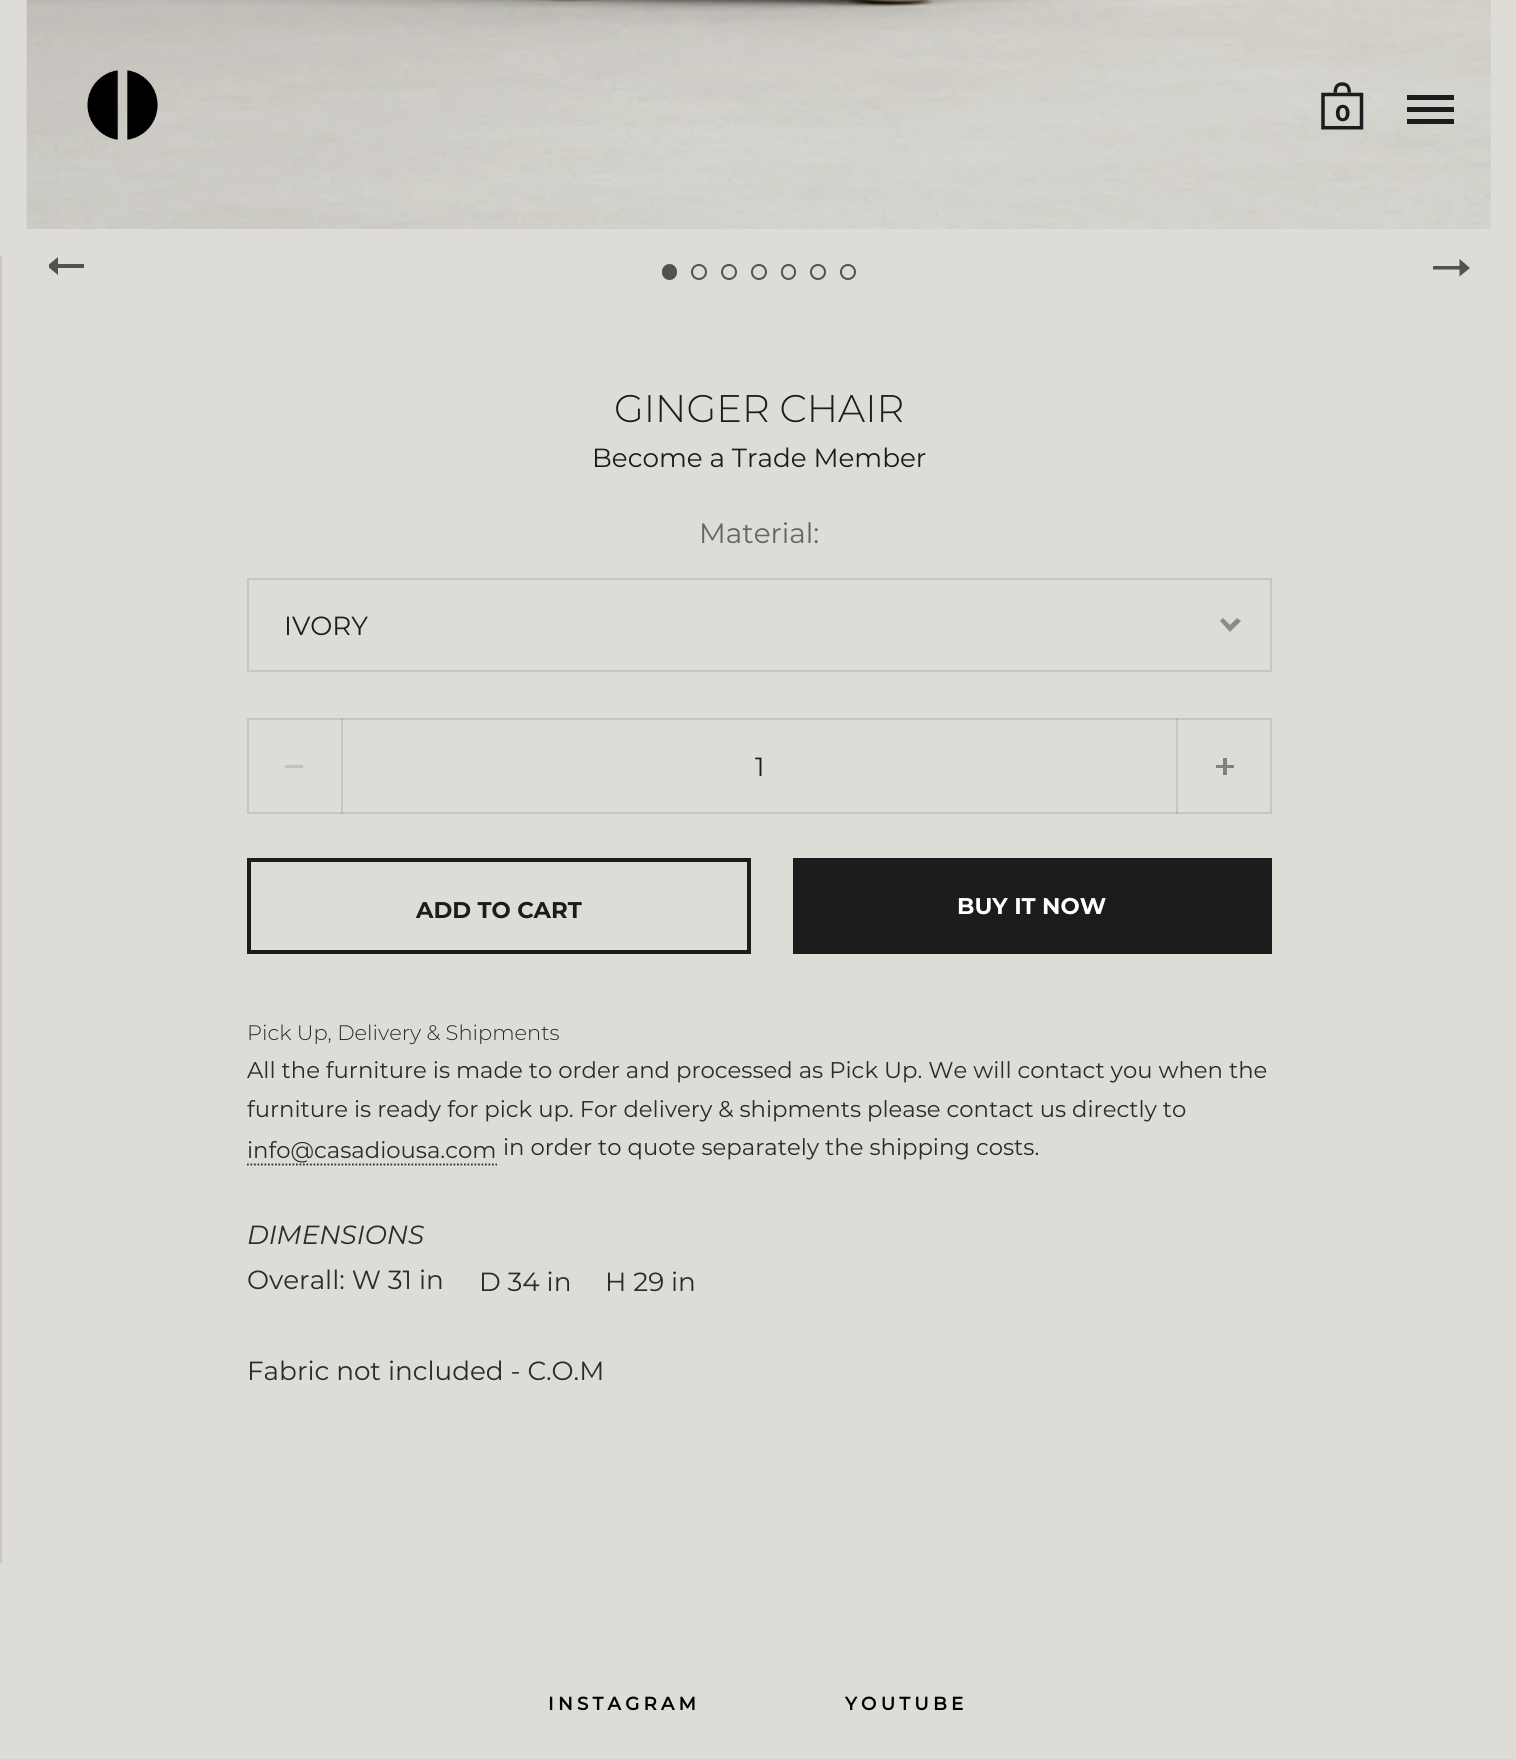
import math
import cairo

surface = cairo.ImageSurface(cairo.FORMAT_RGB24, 1516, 1759)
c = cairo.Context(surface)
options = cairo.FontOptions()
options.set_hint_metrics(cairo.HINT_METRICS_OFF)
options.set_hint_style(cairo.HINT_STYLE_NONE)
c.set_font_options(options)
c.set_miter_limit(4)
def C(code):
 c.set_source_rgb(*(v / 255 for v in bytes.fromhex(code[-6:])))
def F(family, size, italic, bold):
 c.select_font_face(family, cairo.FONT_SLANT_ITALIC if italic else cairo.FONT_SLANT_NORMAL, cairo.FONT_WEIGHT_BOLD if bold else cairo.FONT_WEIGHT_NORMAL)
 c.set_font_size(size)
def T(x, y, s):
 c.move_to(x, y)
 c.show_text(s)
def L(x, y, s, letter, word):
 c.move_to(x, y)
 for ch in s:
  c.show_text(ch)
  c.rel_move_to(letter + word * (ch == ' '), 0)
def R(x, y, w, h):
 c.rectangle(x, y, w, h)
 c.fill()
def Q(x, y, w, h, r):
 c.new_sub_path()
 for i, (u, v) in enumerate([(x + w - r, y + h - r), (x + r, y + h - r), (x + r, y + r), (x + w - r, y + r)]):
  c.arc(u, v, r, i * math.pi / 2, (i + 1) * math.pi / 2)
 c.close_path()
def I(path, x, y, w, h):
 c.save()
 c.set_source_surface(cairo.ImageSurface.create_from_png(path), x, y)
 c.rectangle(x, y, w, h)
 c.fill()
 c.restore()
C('dddcd7')
c.paint()
I('3.png',26,0,1465,229)
I('1.png',87,70,71,70)
I('2.png',1321,82,43,48)
F('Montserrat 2',22.75,0,1)
C('1c1c1c')
T(1335,121,'0')
R(1407,107,47,5)
R(1407,95,47,5)
R(1407,119,47,5)
c.save()
c.rectangle(49,257,37,18)
c.clip()
C('525250')
c.new_path()
c.move_to(47,266)
c.line_to(58,257)
c.line_to(58,264)
c.line_to(84,264)
c.line_to(84,268)
c.line_to(58,268)
c.line_to(58,275)
c.close_path()
c.fill()
c.restore()
C('525250')
Q(663,265,13,14,6.5)
c.fill_preserve()
c.stroke()
c.arc(699,272,7,0,2 * math.pi)
c.stroke()
c.arc(729,272,7,0,2 * math.pi)
c.stroke()
c.arc(759,272,7,0,2 * math.pi)
c.stroke()
Q(782,265,13,14,6.5)
c.stroke()
c.arc(818,272,7,0,2 * math.pi)
c.stroke()
c.arc(848,272,7,0,2 * math.pi)
c.stroke()
c.new_path()
c.move_to(1470,268)
c.line_to(1459.5,276.5)
c.line_to(1459.5,269.5)
c.line_to(1433,269.5)
c.line_to(1433,266)
c.line_to(1459.5,266)
c.line_to(1459.5,259)
c.close_path()
c.fill()
C('c8c6be')
R(0,256,2,1310)
F('Montserrat Light',38.5,0,0)
C('1c1c1c')
T(614,422,'GINGER CHAIR')
F('Montserrat',26.25,0,0)
T(592,467,'Become a Trade Member')
F('Montserrat',28,0,0)
C('656563')
T(699,543,'Material:')
C('8c8b88')
c.new_path()
c.move_to(1220,621)
c.line_to(1223,618)
c.line_to(1230,625)
c.line_to(1237,618)
c.line_to(1241,621)
c.line_to(1230,632)
c.line_to(1220,621)
c.fill()
c.rectangle(248,579,1023,92)
C('c6c5c1')
c.stroke()
F('Montserrat',26.25,0,0)
C('1c1c1c')
T(284,635,'IVORY')
c.rectangle(248,719,1023,94)
C('c6c5c1')
c.stroke()
c.set_source_rgba(0.11,0.11,0.11,0.12)
R(341,718,2,96)
C('c2c2bd')
R(285,765,18,3)
C('1c1c1c')
T(755,776,'1')
c.set_source_rgba(0.11,0.11,0.11,0.12)
R(1176,718,2,96)
C('80807d')
R(1216,765,18,3)
R(1223,758,4,17)
c.rectangle(249,860,500,92)
C('1c1c1c')
c.set_line_width(4)
c.stroke()
F('Montserrat 2',22.75,0,1)
T(416,918,'ADD TO CART')
R(793,858,479,96)
C('ffffff')
T(957,914,'BUY IT NOW')
F('Montserrat Light',21,0,0)
C('2b2b2b')
T(247,1040,'Pick Up, Delivery & Shipments')
F('Montserrat',22.75,0,0)
T(247,1078,'All the furniture is made to order and processed as Pick Up. We will contact you when the')
T(247,1117,'furniture is ready for pick up. For delivery & shipments please contact us directly to')
T(247,1158,'info@casadiousa.com')
c.new_path()
c.move_to(247,1164.5)
c.line_to(497,1164.5)
c.set_line_width(1.8)
c.set_dash([1.75,1.75])
c.stroke()
T(503,1155,'in order to quote separately the shipping costs.')
F('Montserrat',26.25,1,0)
T(247,1244,'DIMENSIONS')
F('Montserrat',26.25,0,0)
T(247,1289,'Overall: W 31 in')
T(479,1291,'D 34 in')
T(605,1291,'H 29 in')
T(247,1380,'Fabric not included - C.O.M')
C('dddcd7')
R(0,1563,2,3)
F('Montserrat',18.25,0,1)
C('000000')
L(548,1710,'INSTAGRAM',4.25,0)
L(845,1710,'YOUTUBE',4.25,0)
surface.write_to_png('o.png')
